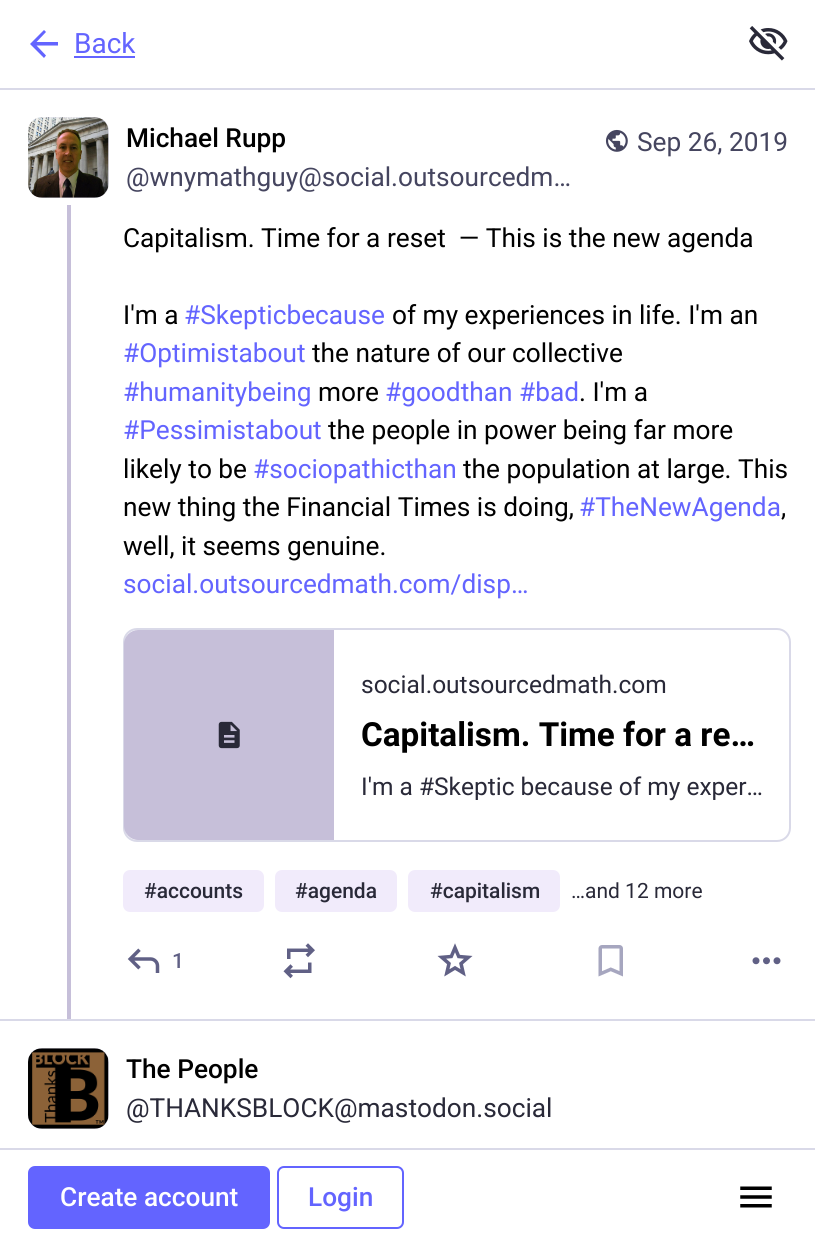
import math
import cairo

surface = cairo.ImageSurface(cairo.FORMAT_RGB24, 815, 1243)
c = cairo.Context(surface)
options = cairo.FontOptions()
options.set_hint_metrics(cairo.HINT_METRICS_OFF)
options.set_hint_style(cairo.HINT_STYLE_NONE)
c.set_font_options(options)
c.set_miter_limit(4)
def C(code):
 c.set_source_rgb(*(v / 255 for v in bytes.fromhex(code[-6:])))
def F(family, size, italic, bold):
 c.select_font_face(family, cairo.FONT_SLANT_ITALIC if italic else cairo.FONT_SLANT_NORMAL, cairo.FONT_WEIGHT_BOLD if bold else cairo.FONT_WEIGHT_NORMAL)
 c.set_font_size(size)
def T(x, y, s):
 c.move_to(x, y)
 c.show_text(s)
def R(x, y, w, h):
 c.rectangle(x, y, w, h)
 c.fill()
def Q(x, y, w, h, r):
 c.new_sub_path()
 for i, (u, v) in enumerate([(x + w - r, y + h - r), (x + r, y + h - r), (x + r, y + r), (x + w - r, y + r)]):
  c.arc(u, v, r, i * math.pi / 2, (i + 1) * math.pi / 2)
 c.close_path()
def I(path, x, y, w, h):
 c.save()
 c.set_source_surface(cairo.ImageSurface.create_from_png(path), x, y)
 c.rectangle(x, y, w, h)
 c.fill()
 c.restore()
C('ffffff')
c.paint()
C('d9d9e8')
R(0,88,815,2)
C('6364ff')
c.new_path()
c.move_to(36.5,45.5)
c.line_to(46,55.5)
c.line_to(44,58)
c.line_to(30,44)
c.line_to(44,30)
c.line_to(46,32)
c.line_to(36.5,42)
c.line_to(58,42)
c.line_to(58,45.5)
c.close_path()
c.fill()
F('Roboto',28,0,0)
T(74,53,'Back')
R(74,56,61,2)
I('1.png',749,26,39,35)
C('e8e6f0')
Q(28,117,81,81,14)
c.fill()
I('2.png',28,117,81,81)
F('Roboto Medium',26.25,0,0)
C('000000')
T(126,147,'Michael Rupp')
F('Roboto',26.25,0,0)
C('45455f')
T(126,186,'@wnymathguy@social.outsourcedm…')
I('3.png',605,129,23,23)
T(637,151,'Sep 26, 2019')
C('c6bfd9')
R(67,205,4,814)
C('000000')
T(123,247,'Capitalism. Time for a reset  — This is the new agenda')
T(123,324,'I\'m a')
C('6364ff')
T(184,324,'#Skepticbecause')
C('000000')
T(392,324,'of my experiences in life. I\'m an')
C('6364ff')
T(123,362,'#Optimistabout')
C('000000')
T(312,362,'the nature of our collective')
C('6364ff')
T(123,401,'#humanitybeing')
C('000000')
T(318,401,'more')
C('6364ff')
T(385,401,'#goodthan #bad')
C('000000')
T(579,401,'. I\'m a')
C('6364ff')
T(123,439,'#Pessimistabout')
C('000000')
T(328,439,'the people in power being far more')
T(123,478,'likely to be')
C('6364ff')
T(253,478,'#sociopathicthan')
C('000000')
T(463,478,'the population at large. This')
T(123,516,'new thing the Financial Times is doing,')
C('6364ff')
T(579,516,'#TheNewAgenda')
C('000000')
T(781,516,',')
T(123,555,'well, it seems genuine.')
C('6364ff')
T(123,593,'social.outsourcedmath.com/disp…')
Q(124,629,666,212,13)
C('d9d9e8')
c.stroke()
c.save()
Q(124,630,665,210,12)
c.clip()
C('c6bfd9')
c.new_path()
c.move_to(138,630)
c.line_to(334,630)
c.line_to(334,840)
c.line_to(138,840)
c.curve_to(130.5,840,124,833.5,124,826)
c.line_to(124,644)
c.curve_to(124,636.5,130.5,630,138,630)
c.close_path()
c.fill()
c.restore()
I('4.png',218,721,22,28)
F('Roboto',24.5,0,0)
C('292938')
T(361,693,'social.outsourcedmath.com')
F('Roboto',33.25,0,1)
C('000000')
T(361,746,'Capitalism. Time for a re…')
F('Roboto',24.5,0,0)
C('292938')
T(361,795,'I\'m a #Skeptic because of my exper…')
C('f1ebfb')
Q(123,870,141,42,7)
c.fill()
F('Roboto Medium',21,0,0)
C('292938')
T(144,898,'#accounts')
C('f1ebfb')
Q(275,870,122,42,7)
c.fill()
C('292938')
T(295,898,'#agenda')
C('f1ebfb')
Q(408,870,152,42,7)
c.fill()
C('292938')
T(430,898,'#capitalism')
F('Roboto',21,0,0)
T(571,898,'…and 12 more')
I('5.png',127,948,33,25)
F('Roboto Medium',21,0,0)
C('606085')
T(172,968,'1')
I('6.png',283,943,32,36)
I('7.png',437,943,36,34)
I('8.png',598,945,25,32)
I('9.png',752,957,29,8)
C('d9d9e8')
R(0,1019,815,2)
C('e8e6f0')
Q(28,1048,81,81,14)
c.fill()
I('10.png',28,1048,81,81)
F('Roboto Medium',26.25,0,0)
C('000000')
T(126,1078,'The People')
F('Roboto',26.25,0,0)
C('292938')
T(126,1117,'@THANKSBLOCK@mastodon.social')
C('d9d9e8')
R(0,1148,815,2)
C('6364ff')
Q(28,1166,242,63,7)
c.fill()
F('Roboto Medium',26.25,0,0)
C('ffffff')
T(60,1206,'Create account')
Q(278,1167,125,61,6)
C('6364ff')
c.stroke()
T(308,1206,'Login')
I('11.png',740,1186,32,22)
surface.write_to_png('o.png')
